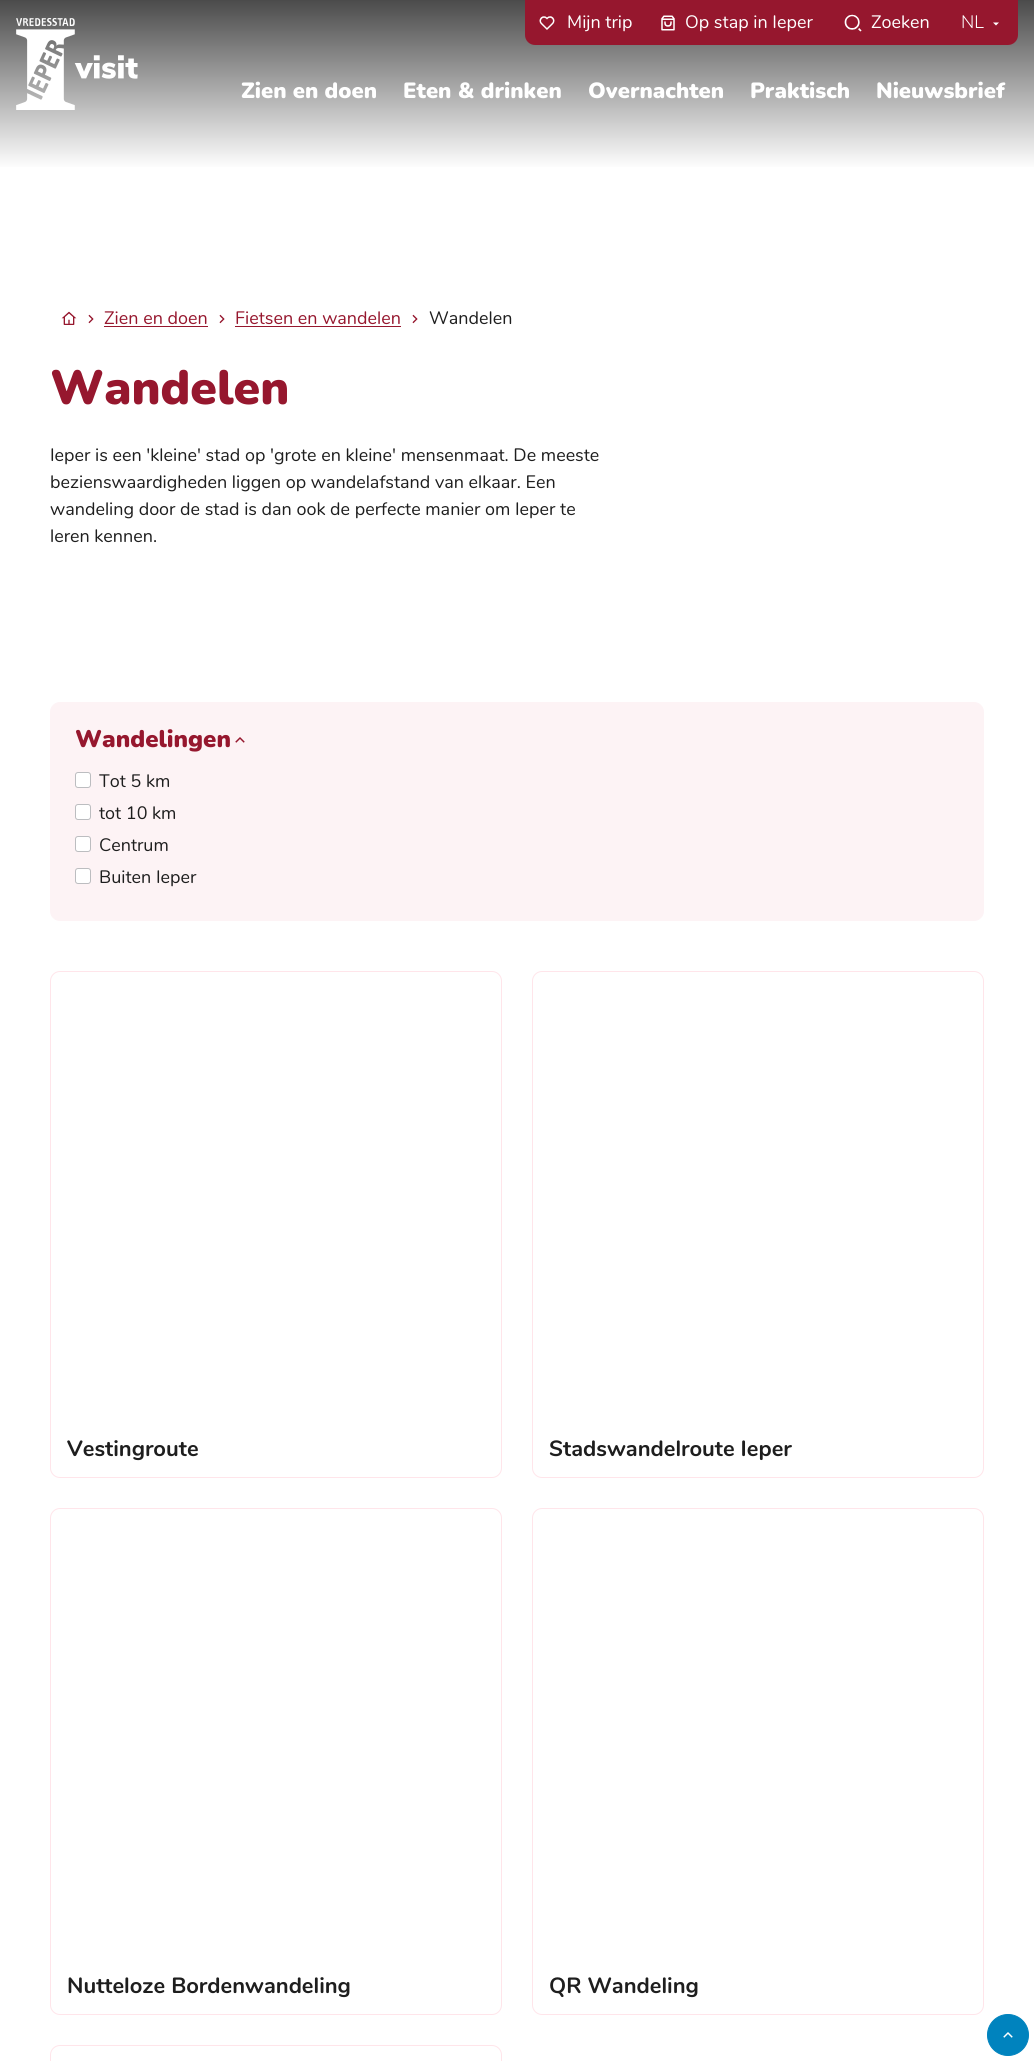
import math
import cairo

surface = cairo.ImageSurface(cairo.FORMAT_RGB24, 1034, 2061)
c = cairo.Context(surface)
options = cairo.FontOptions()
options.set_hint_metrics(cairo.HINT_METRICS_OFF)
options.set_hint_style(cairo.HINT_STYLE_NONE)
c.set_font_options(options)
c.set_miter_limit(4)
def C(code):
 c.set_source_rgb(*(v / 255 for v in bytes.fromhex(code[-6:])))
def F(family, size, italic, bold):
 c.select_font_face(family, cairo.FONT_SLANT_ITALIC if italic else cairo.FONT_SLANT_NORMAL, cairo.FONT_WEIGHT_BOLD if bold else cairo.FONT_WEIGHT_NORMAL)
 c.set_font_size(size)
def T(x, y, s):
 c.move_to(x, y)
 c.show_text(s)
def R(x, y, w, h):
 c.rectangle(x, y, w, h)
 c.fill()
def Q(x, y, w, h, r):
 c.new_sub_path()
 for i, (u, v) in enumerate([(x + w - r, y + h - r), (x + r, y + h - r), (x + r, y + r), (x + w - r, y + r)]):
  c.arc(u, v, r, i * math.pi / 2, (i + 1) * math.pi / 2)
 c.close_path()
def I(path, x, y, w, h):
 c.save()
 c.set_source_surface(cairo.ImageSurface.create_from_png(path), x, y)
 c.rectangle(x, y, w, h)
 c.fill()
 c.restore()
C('ffffff')
c.paint()
gradient = cairo.LinearGradient(517,0,517,169)
gradient.add_color_stop_rgba(0,0.294,0.294,0.294,1)
gradient.add_color_stop_rgba(1,1,1,1,1)
c.set_source(gradient)
R(0,0,1034,167)
I('1.png',16,18,122,92)
C('96172e')
c.new_path()
c.move_to(525,0)
c.line_to(1018,0)
c.line_to(1018,35)
c.curve_to(1018,40.5,1013.5,45,1008,45)
c.line_to(535,45)
c.curve_to(529.5,45,525,40.5,525,35)
c.close_path()
c.fill()
I('2.png',539,16,16,14)
F('Nunito',18,0,0)
C('ffffff')
T(567,28,'Mijn trip')
I('3.png',661,15,14,16)
T(685,28,'Op stap in Ieper')
I('4.png',844,14,18,18)
T(871,28,'Zoeken')
F('Nunito Light',18,0,0)
T(961,28,'NL')
I('5.png',993,22,6,4)
F('Nunito ExtraLight',22,0,0)
T(241,98,'Zien en doen')
T(403,98,'Eten & drinken')
T(588,98,'Overnachten')
T(750,98,'Praktisch')
T(876,98,'Nieuwsbrief')
I('6.png',61,311,16,14)
I('7.png',88,314,6,10)
F('Nunito',18,0,0)
C('96172e')
T(104,324,'Zien en doen')
R(104,326,104,1)
I('7.png',219,314,6,10)
T(235,324,'Fietsen en wandelen')
R(235,326,166,1)
I('7.png',412,314,6,10)
C('1e1e1e')
T(429,324,'Wandelen')
F('Nunito ExtraLight',48,0,0)
C('96172e')
T(50,404,'Wandelen')
F('Nunito',18,0,0)
C('1e1e1e')
T(50,461,'Ieper is een \'kleine\' stad op \'grote en kleine\' mensenmaat. De meeste')
T(50,488,'bezienswaardigheden liggen op wandelafstand van elkaar. Een')
T(50,515,'wandeling door de stad is dan ook de perfecte manier om Ieper te')
T(50,542,'leren kennen.')
C('fdf3f5')
Q(50.5,702.5,933,218,9.5)
c.fill_preserve()
c.set_line_width(1)
c.stroke()
F('Nunito ExtraLight',24,0,0)
C('96172e')
T(75,747,'Wandelingen')
I('8.png',235,737,10,6)
C('ffffff')
Q(75.5,772.5,15,15,2.5)
c.fill_preserve()
C('bcbdc0')
c.stroke()
F('Nunito',18,0,0)
C('1e1e1e')
T(99,787,'Tot 5 km')
C('ffffff')
Q(75.5,804.5,15,15,2.5)
c.fill_preserve()
C('bcbdc0')
c.stroke()
C('1e1e1e')
T(99,819,'tot 10 km')
C('ffffff')
Q(75.5,836.5,15,15,2.5)
c.fill_preserve()
C('bcbdc0')
c.stroke()
C('1e1e1e')
T(99,851,'Centrum')
C('ffffff')
Q(75.5,868.5,15,15,2.5)
c.fill_preserve()
C('bcbdc0')
c.stroke()
C('1e1e1e')
T(99,883,'Buiten Ieper')
Q(50.5,971.5,451,506,9.5)
C('ffe5ea')
c.stroke()
F('Nunito',22,0,1)
C('1e1e1e')
T(67,1456,'Vestingroute')
Q(532.5,971.5,451,506,9.5)
C('ffe5ea')
c.stroke()
C('1e1e1e')
T(549,1456,'Stadswandelroute Ieper')
Q(50.5,1508.5,451,506,9.5)
C('ffe5ea')
c.stroke()
C('1e1e1e')
T(67,1993,'Nutteloze Bordenwandeling')
Q(532.5,1508.5,451,506,9.5)
C('ffe5ea')
c.stroke()
C('1e1e1e')
T(549,1993,'QR Wandeling')
Q(50.5,2045.5,451,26,9.5)
C('ffe5ea')
c.stroke()
C('0083be')
c.arc(1008,2035,20.5,0,2 * math.pi)
c.fill_preserve()
c.stroke()
I('9.png',1003,2032,10,6)
surface.write_to_png('o.png')
